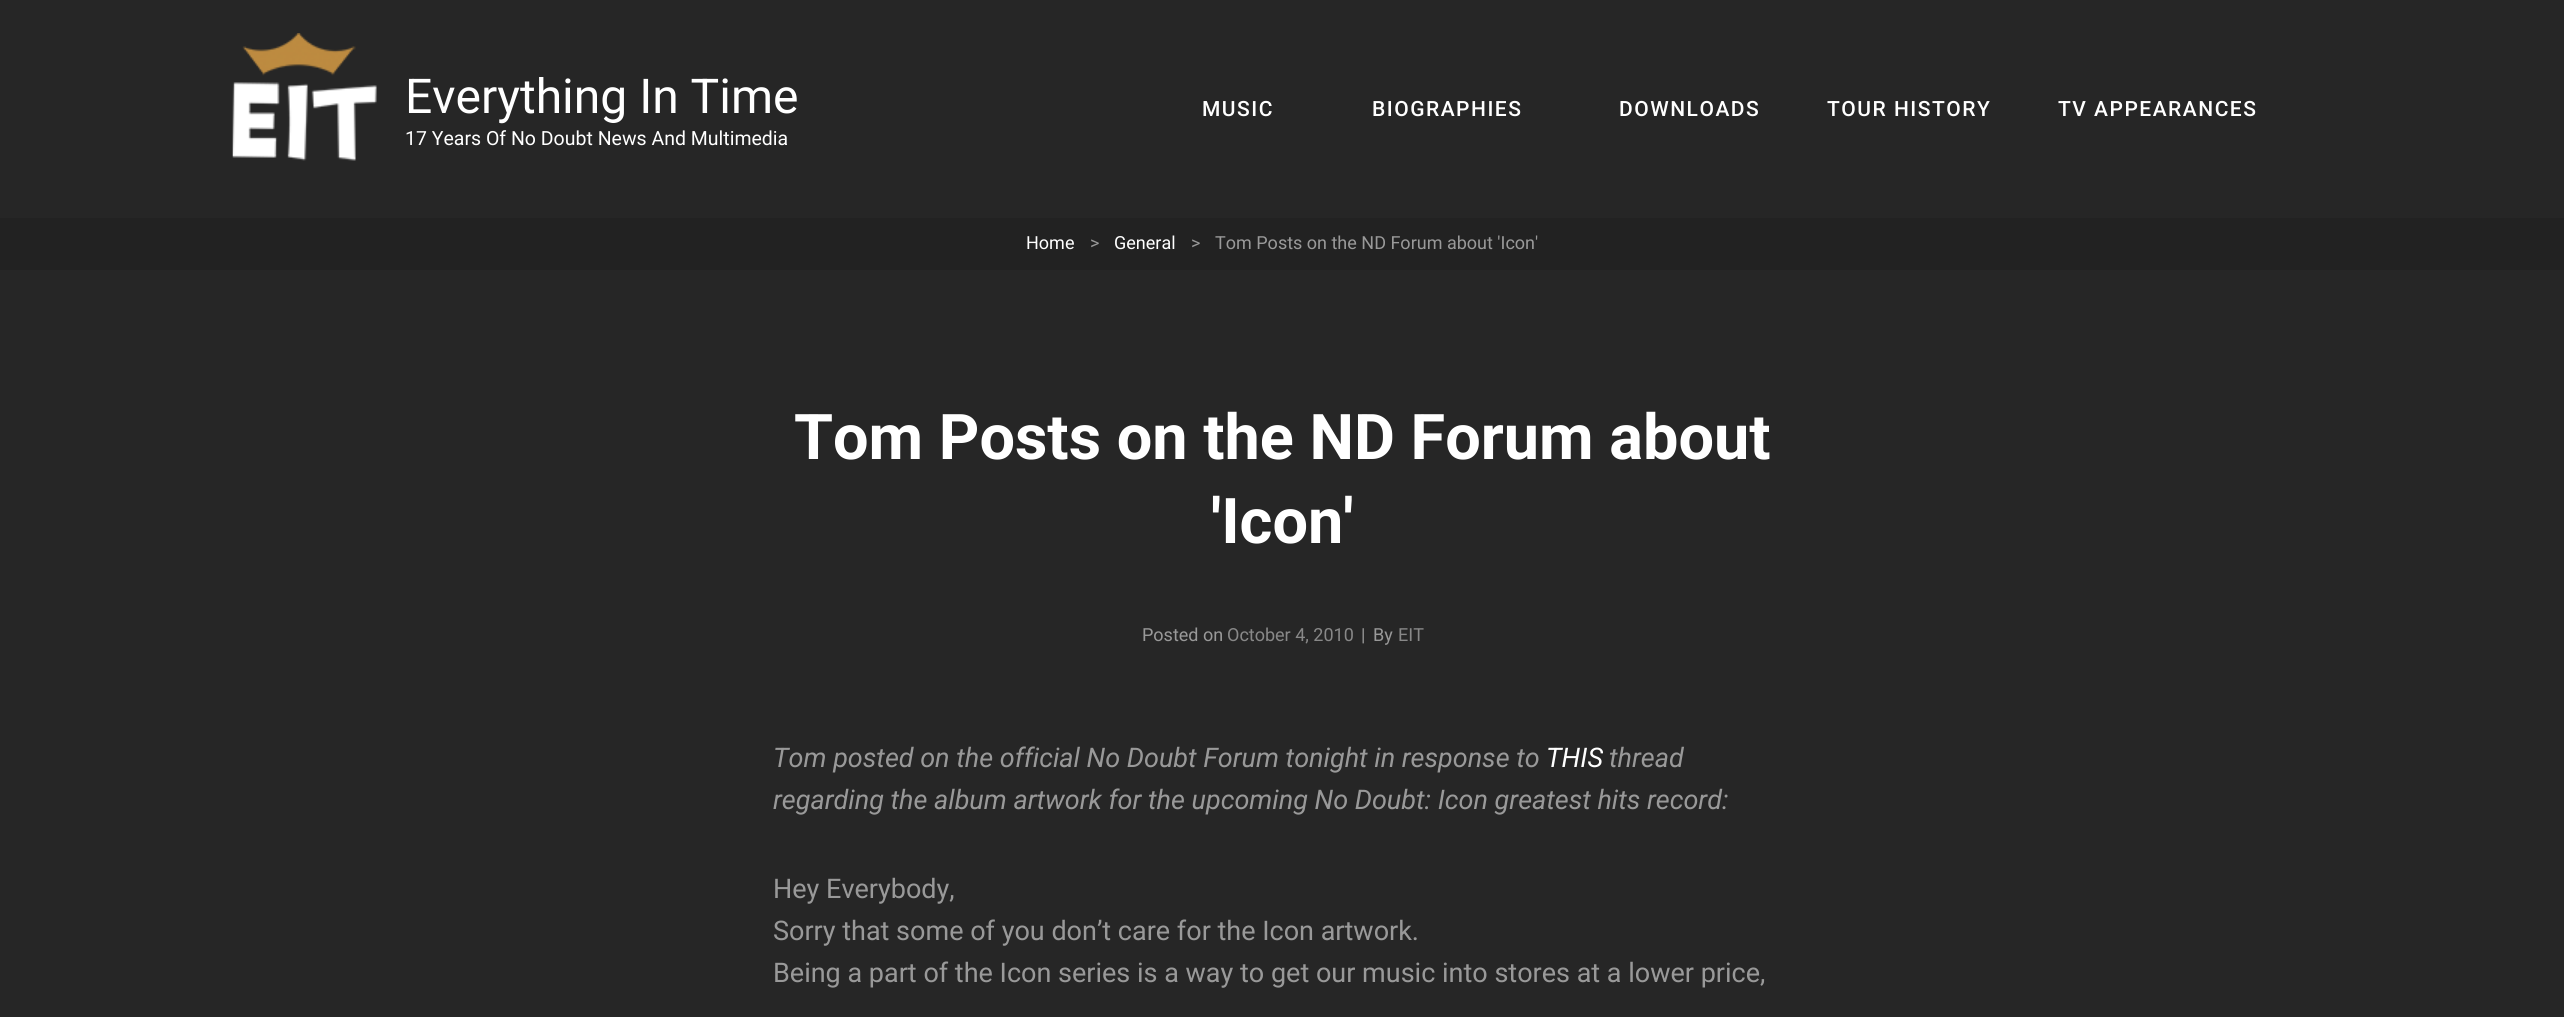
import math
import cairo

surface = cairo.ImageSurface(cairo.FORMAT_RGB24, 2564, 1017)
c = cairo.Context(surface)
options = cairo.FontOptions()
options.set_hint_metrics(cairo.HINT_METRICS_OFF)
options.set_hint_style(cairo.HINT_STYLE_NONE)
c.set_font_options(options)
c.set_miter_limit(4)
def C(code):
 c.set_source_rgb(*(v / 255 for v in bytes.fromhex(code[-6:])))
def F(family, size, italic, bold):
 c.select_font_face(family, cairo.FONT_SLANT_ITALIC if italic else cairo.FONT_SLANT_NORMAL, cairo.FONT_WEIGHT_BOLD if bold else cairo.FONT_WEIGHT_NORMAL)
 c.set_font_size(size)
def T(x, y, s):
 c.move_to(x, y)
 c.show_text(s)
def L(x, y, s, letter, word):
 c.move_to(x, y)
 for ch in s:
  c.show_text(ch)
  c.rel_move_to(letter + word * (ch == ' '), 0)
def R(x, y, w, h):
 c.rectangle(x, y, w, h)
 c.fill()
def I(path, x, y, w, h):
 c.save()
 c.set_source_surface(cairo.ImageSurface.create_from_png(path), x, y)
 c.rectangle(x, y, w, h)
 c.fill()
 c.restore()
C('262626')
c.paint()
I('1.png',232,33,145,128)
F('Roboto',48,0,0)
C('ffffff')
T(405,113,'Everything In Time')
F('Roboto',19.5,0,0)
T(405,145,'17 Years Of No Doubt News And Multimedia')
F('Roboto Medium',21,0,0)
L(1202,116,'MUSIC',1.5,0)
L(1372,116,'BIOGRAPHIES',1.5,0)
L(1619,116,'DOWNLOADS',1.5,0)
L(1827,116,'TOUR HISTORY',1.5,0)
L(2058,116,'TV APPEARANCES',1.5,0)
C('222222')
R(0,218,2564,52)
F('Roboto',18,0,0)
C('ffffff')
T(1026,249,'Home')
C('999999')
T(1090,249,'>')
C('ffffff')
T(1114,249,'General')
C('999999')
T(1191,249,'>')
T(1215,249,'Tom Posts on the ND Forum about \'Icon\'')
F('Roboto',63,0,1)
C('ffffff')
T(794,459,'Tom Posts on the ND Forum about')
T(1211,543,'\'Icon\'')
F('Roboto',18,0,0)
C('999999')
T(1142,641,'Posted on')
C('888888')
T(1227,641,'October 4, 2010')
C('999999')
T(1361,641,'|')
T(1373,641,'By')
C('888888')
T(1398,641,'EIT')
F('Roboto',27,1,0)
C('999999')
T(773,767,'Tom posted on the official No Doubt Forum tonight in response to')
C('ffffff')
T(1546,767,'THIS')
C('999999')
T(1609,767,'thread')
T(773,809,'regarding the album artwork for the upcoming No Doubt: Icon greatest hits record:')
F('Roboto',27,0,0)
T(773,898,'Hey Everybody,')
T(773,940,'Sorry that some of you don’t care for the Icon artwork.')
T(773,982,'Being a part of the Icon series is a way to get our music into stores at a lower price,')
surface.write_to_png('o.png')
